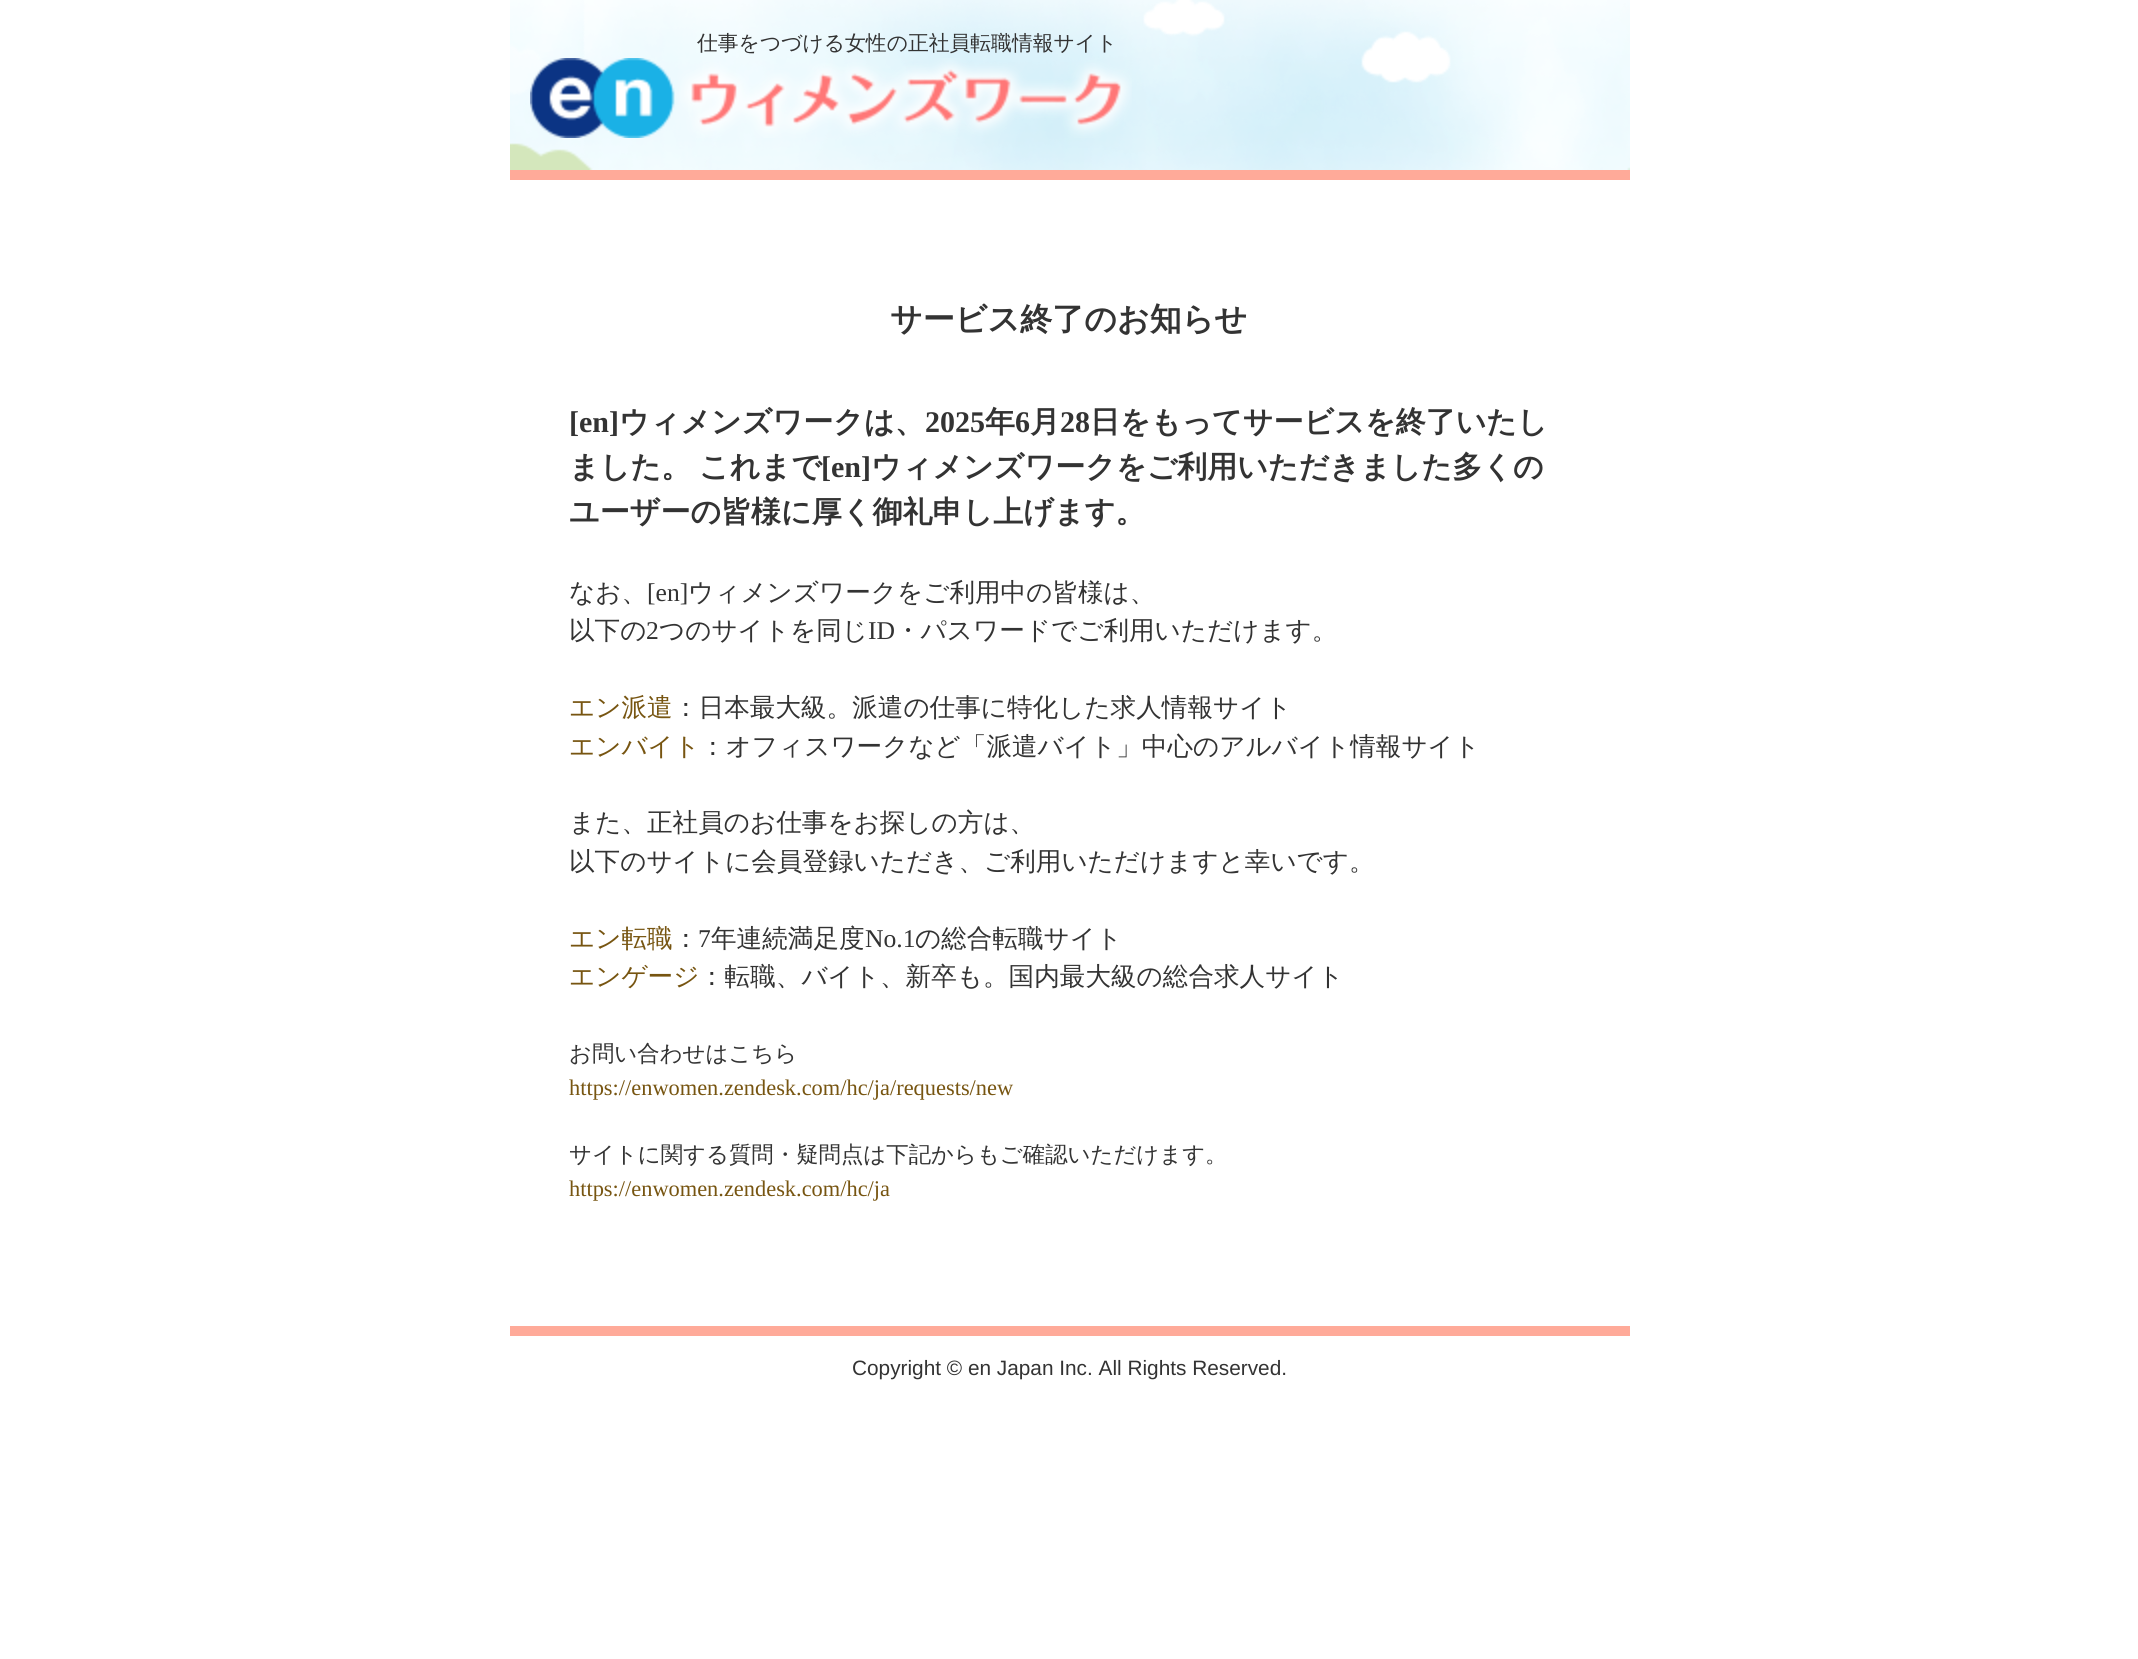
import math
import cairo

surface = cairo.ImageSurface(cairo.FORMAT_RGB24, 2138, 1659)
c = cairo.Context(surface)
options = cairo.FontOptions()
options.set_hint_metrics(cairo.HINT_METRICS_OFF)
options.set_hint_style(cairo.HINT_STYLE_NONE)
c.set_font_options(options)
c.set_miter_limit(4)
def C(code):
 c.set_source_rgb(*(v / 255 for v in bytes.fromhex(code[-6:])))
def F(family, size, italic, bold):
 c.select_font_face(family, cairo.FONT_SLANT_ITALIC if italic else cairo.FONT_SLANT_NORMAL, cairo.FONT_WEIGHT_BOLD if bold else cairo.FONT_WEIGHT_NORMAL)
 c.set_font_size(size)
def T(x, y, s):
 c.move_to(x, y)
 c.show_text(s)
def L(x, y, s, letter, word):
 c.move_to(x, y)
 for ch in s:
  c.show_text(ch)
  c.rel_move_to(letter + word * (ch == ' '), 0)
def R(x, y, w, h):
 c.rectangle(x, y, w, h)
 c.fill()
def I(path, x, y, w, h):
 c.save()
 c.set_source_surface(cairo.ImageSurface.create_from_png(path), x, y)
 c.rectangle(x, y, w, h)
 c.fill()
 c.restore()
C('ffffff')
c.paint()
I('1.png',510,0,1120,170)
F('WenQuanYi Zen Hei Medium',20.8,0,0)
C('333333')
T(697,50,'仕事をつづける女性の正社員転職情報サイト')
I('2.png',530,58,602,80)
C('ffaa99')
R(510,170,1120,10)
F('WenQuanYi Zen Hei',32,0,1)
C('333333')
T(890,330,'サービス終了のお知らせ')
F('Liberation Serif',30,0,1)
T(569,432,'[en]')
F('WenQuanYi Zen Hei',30,0,1)
T(619,432,'ウィメンズワークは、')
F('Liberation Serif',30,0,1)
T(925,432,'2025')
F('WenQuanYi Zen Hei',30,0,1)
T(985,432,'年')
F('Liberation Serif',30,0,1)
T(1015,432,'6')
F('WenQuanYi Zen Hei',30,0,1)
T(1030,432,'月')
F('Liberation Serif',30,0,1)
T(1060,432,'28')
F('WenQuanYi Zen Hei',30,0,1)
T(1090,432,'日をもってサービスを終了いたし')
L(569,477,'ました。 これまで',0,-1)
F('Liberation Serif',30,0,1)
T(821,477,'[en]')
F('WenQuanYi Zen Hei',30,0,1)
T(871,477,'ウィメンズワークをご利用いただきました多くの')
T(569,522,'ユーザーの皆様に厚く御礼申し上げます。')
F('WenQuanYi Zen Hei Medium',25.6,0,0)
T(569,601,'なお、')
F('Liberation Serif',25.6,0,0)
T(647,601,'[en]')
F('WenQuanYi Zen Hei Medium',25.6,0,0)
T(688,601,'ウィメンズワークをご利用中の皆様は、')
T(569,639,'以下の')
F('Liberation Serif',25.6,0,0)
T(646,639,'2')
F('WenQuanYi Zen Hei Medium',25.6,0,0)
T(659,639,'つのサイトを同じ')
F('Liberation Serif',25.6,0,0)
T(868,639,'ID')
F('WenQuanYi Zen Hei Medium',25.6,0,0)
T(895,639,'・パスワードでご利用いただけます。')
C('775511')
T(569,716,'エン派遣')
C('333333')
T(673,716,'：日本最大級。派遣の仕事に特化した求人情報サイト')
C('775511')
T(569,755,'エンバイト')
C('333333')
T(700,755,'：オフィスワークなど「派遣バイト」中心のアルバイト情報サイト')
T(569,831,'また、正社員のお仕事をお探しの方は、')
T(569,870,'以下のサイトに会員登録いただき、ご利用いただけますと幸いです。')
C('775511')
T(569,947,'エン転職')
C('333333')
T(673,947,'：')
F('Liberation Serif',25.6,0,0)
T(698,947,'7')
F('WenQuanYi Zen Hei Medium',25.6,0,0)
T(711,947,'年連続満足度')
F('Liberation Serif',25.6,0,0)
T(865,947,'No.1')
F('WenQuanYi Zen Hei Medium',25.6,0,0)
T(915,947,'の総合転職サイト')
C('775511')
T(569,985,'エンゲージ')
C('333333')
T(699,985,'：転職、バイト、新卒も。国内最大級の総合求人サイト')
F('WenQuanYi Zen Hei Medium',22.4,0,0)
T(569,1061,'お問い合わせはこちら')
F('Liberation Serif',22.4,0,0)
C('775511')
T(569,1095,'https://enwomen.zendesk.com/hc/ja/requests/new')
F('WenQuanYi Zen Hei Medium',22.4,0,0)
C('333333')
T(569,1162,'サイトに関する質問・疑問点は下記からもご確認いただけます。')
F('Liberation Serif',22.4,0,0)
C('775511')
T(569,1196,'https://enwomen.zendesk.com/hc/ja')
C('ffaa99')
R(510,1326,1120,10)
F('Liberation Sans',20.8,0,0)
C('333333')
T(852,1375,'Copyright © en Japan Inc. All Rights Reserved.')
surface.write_to_png('o.png')
